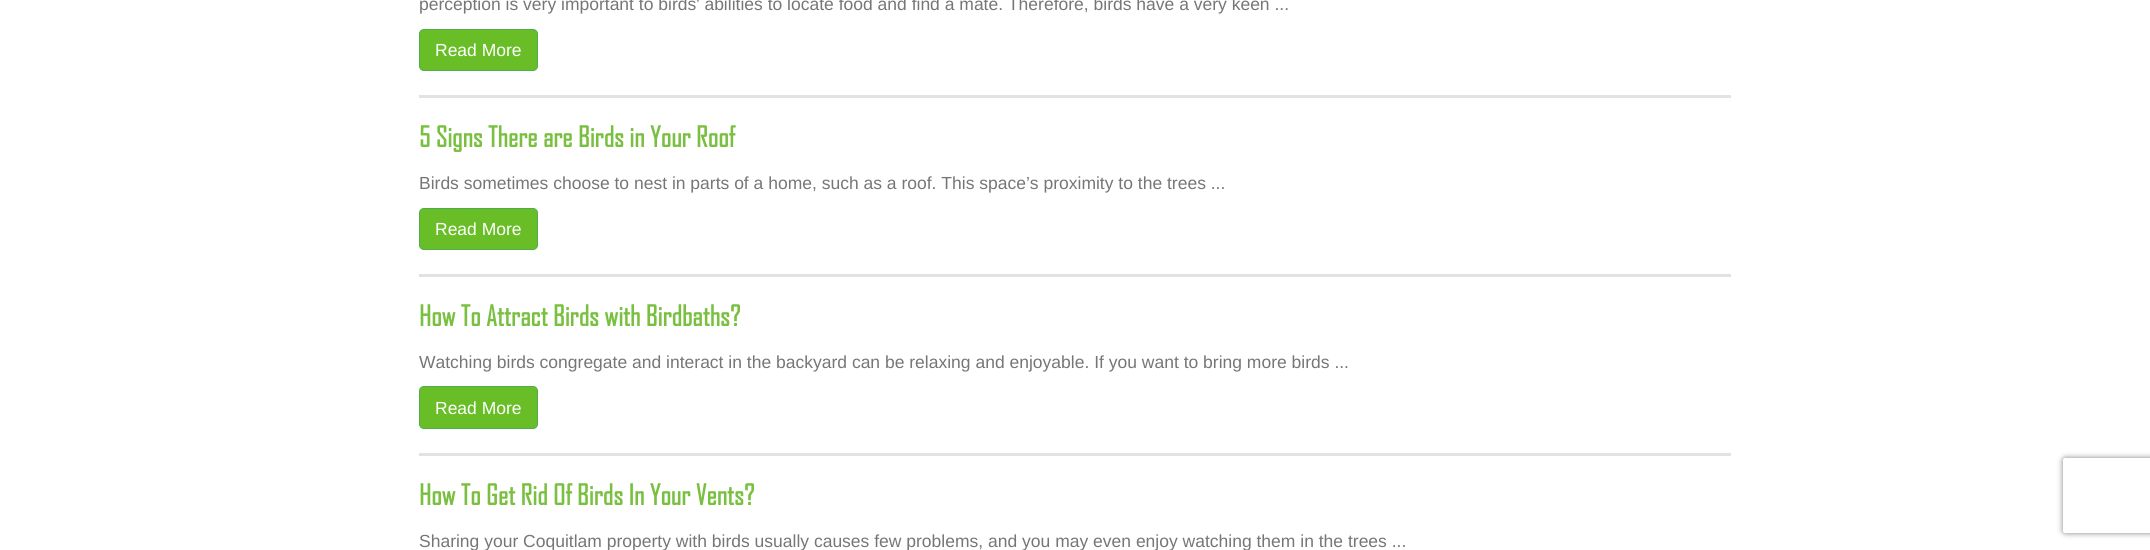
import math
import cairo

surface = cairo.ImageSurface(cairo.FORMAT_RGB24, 2150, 550)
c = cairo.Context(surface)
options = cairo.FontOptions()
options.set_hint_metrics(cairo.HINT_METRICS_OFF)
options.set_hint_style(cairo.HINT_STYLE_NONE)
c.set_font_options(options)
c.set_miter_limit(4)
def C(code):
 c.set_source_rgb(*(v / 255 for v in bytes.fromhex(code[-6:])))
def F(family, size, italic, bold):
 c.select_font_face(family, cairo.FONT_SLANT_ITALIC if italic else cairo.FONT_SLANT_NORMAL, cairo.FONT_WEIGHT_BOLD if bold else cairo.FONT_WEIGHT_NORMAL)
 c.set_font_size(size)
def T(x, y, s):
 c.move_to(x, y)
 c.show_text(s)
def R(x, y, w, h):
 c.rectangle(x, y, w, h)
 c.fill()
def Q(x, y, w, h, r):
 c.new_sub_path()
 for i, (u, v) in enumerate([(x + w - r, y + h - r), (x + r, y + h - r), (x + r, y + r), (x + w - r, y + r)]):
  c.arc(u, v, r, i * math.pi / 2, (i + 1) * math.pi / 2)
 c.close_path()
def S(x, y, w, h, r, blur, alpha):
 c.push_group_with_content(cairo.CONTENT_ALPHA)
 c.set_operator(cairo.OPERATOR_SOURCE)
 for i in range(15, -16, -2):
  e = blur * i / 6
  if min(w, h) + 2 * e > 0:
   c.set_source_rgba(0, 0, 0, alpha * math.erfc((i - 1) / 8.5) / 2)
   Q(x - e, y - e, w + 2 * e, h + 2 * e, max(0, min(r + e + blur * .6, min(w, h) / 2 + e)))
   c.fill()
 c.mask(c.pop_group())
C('ffffff')
c.paint()
F('Liberation Sans',17.5,0,0)
C('767676')
T(419,10,'perception is very important to birds\' abilities to locate food and find a mate. Therefore, birds have a very keen ...')
C('69be28')
Q(419.5,29.5,118,41,4.5)
c.fill_preserve()
C('4cae4c')
c.set_line_width(1)
c.stroke()
C('ffffff')
T(435,56,'Read More')
C('e3e2e1')
R(419,95,1312,3)
F('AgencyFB',27.5,0,1)
C('79c041')
T(419,147,'5 Signs There are Birds in Your Roof')
F('Liberation Sans',17.5,0,0)
C('767676')
T(419,189,'Birds sometimes choose to nest in parts of a home, such as a roof. This space’s proximity to the trees ...')
C('69be28')
Q(419.5,208.5,118,41,4.5)
c.fill_preserve()
C('4cae4c')
c.stroke()
C('ffffff')
T(435,235,'Read More')
C('e3e2e1')
R(419,274,1312,3)
F('AgencyFB',27.5,0,1)
C('79c041')
T(419,326,'How To Attract Birds with Birdbaths?')
F('Liberation Sans',17.5,0,0)
C('767676')
T(419,368,'Watching birds congregate and interact in the backyard can be relaxing and enjoyable. If you want to bring more birds ...')
C('69be28')
Q(419.5,386.5,118,42,4.5)
c.fill_preserve()
C('4cae4c')
c.stroke()
C('ffffff')
T(435,414,'Read More')
C('e3e2e1')
R(419,453,1312,3)
F('AgencyFB',27.5,0,1)
C('79c041')
T(419,505,'How To Get Rid Of Birds In Your Vents?')
F('Liberation Sans',17.5,0,0)
C('767676')
T(419,547,'Sharing your Coquitlam property with birds usually causes few problems, and you may even enjoy watching them in the trees ...')
c.save()
c.set_fill_rule(cairo.FILL_RULE_EVEN_ODD)
c.new_path()
c.move_to(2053,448)
c.line_to(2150,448)
c.line_to(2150,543)
c.line_to(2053,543)
c.close_path()
c.move_to(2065.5,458)
c.line_to(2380.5,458)
c.curve_to(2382,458,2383,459,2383,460.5)
c.line_to(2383,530.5)
c.curve_to(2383,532,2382,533,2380.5,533)
c.line_to(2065.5,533)
c.curve_to(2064,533,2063,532,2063,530.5)
c.line_to(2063,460.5)
c.curve_to(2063,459,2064,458,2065.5,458)
c.close_path()
c.clip()
C('808080')
S(2063,458,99,75,2.5,3,1)
c.restore()
surface.write_to_png('o.png')
